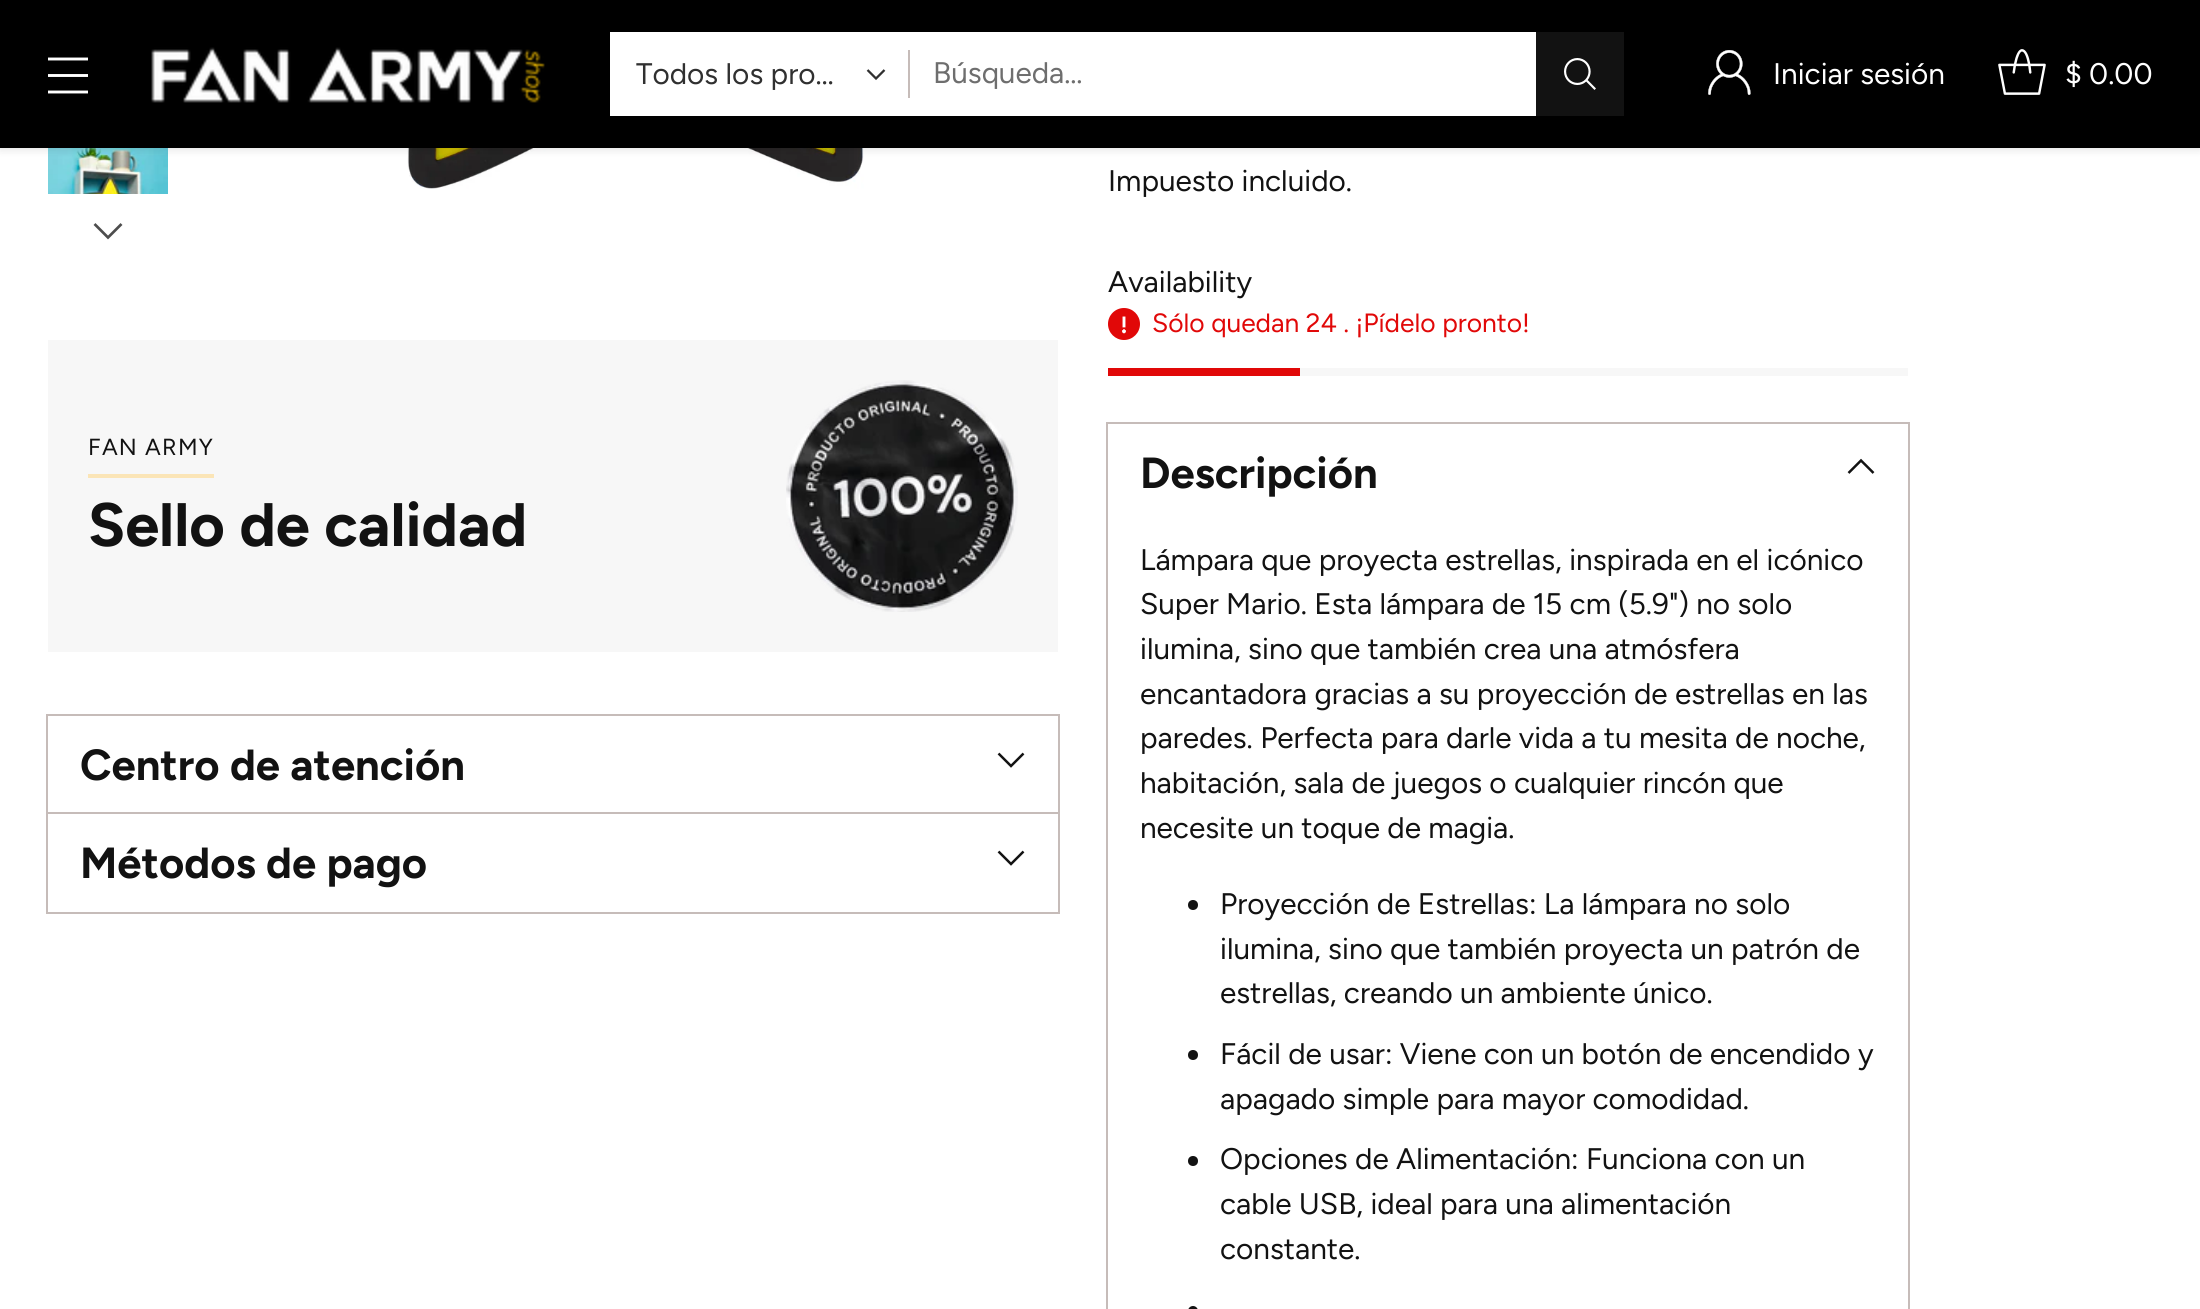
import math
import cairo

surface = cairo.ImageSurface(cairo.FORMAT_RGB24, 2200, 1309)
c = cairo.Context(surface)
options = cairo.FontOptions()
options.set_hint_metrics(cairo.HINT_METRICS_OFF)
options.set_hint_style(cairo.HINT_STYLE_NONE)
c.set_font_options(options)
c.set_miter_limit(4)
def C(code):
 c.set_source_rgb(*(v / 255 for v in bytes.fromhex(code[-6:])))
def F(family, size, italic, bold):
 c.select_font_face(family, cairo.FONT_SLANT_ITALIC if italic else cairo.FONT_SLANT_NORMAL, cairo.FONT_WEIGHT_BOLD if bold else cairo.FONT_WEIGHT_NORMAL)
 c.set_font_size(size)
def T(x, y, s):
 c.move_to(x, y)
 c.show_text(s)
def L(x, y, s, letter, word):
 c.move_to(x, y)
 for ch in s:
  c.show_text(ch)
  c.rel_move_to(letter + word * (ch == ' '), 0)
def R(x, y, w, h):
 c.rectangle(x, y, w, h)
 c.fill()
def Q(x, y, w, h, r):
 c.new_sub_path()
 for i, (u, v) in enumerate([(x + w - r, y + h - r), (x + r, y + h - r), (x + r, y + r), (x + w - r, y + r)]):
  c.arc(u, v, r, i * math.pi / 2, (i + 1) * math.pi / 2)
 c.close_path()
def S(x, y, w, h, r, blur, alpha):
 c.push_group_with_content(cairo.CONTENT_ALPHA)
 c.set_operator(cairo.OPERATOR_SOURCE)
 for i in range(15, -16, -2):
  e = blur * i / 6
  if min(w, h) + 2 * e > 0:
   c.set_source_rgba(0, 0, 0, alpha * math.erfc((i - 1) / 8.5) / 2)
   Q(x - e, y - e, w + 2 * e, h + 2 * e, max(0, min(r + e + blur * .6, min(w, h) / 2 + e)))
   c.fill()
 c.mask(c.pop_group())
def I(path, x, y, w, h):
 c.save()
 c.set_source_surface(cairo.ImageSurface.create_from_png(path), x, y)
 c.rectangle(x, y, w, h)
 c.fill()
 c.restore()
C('ffffff')
c.paint()
I('5.png',48,148,120,46)
I('6.png',407,148,457,41)
C('000000')
S(0,0,2200,148,0,5,.15)
C('000000')
R(0,0,2200,148)
c.new_path()
c.move_to(48,75.5)
c.line_to(88,75.5)
c.move_to(48,59)
c.line_to(88,59)
c.move_to(48,92)
c.line_to(88,92)
C('ffffff')
c.set_line_width(2.9)
c.stroke()
I('1.png',151,47,394,56)
R(610,32,926,84)
F('Figtree',29.75,0,0)
C('303030')
T(636,84,'Todos los pro…')
c.new_path()
c.move_to(867.5,70)
c.line_to(876,78.5)
c.line_to(884.5,70)
c.set_line_width(2.3)
c.stroke()
C('c6bcb9')
R(908,50,2,48)
C('6e6e6e')
T(933,83,'Búsqueda…')
C('121212')
R(1536,32,88,84)
I('2.png',1564,58,32,32)
I('3.png',1708,50,43,45)
C('ffffff')
T(1773,84,'Iniciar sesión')
I('4.png',1998,49,48,46)
T(2065,84,'$ 0.00')
c.new_path()
c.move_to(94.5,224)
c.line_to(108,237.5)
c.line_to(121.5,224)
C('4d4d4d')
c.set_line_width(2.7)
c.stroke()
C('f7f7f7')
R(48,340,1010,312)
F('Figtree',23.25,0,0)
C('121212')
L(88,455,'FAN ARMY',1.25,0)
C('fbe5b7')
R(88,474,126,4)
F('Figtree',61.25,0,1)
C('121212')
T(88,546,'Sello de calidad')
I('7.png',786,380,232,232)
c.rectangle(47,715,1012,100)
C('c6bcb9')
c.set_line_width(2)
c.stroke()
F('Figtree',43.5,0,1)
C('121212')
T(80,780,'Centro de atención')
c.new_path()
c.move_to(998.5,753.5)
c.line_to(1011,766)
c.line_to(1023.5,753.5)
c.set_line_width(2.5)
c.stroke()
c.rectangle(47,813,1012,100)
C('c6bcb9')
c.set_line_width(2)
c.stroke()
C('ffffff')
R(48,814,1010,2)
C('121212')
T(80,878,'Métodos de pago')
c.new_path()
c.move_to(998.5,851.5)
c.line_to(1011,864)
c.line_to(1023.5,851.5)
c.set_line_width(2.5)
c.stroke()
F('Figtree',29.75,0,0)
T(1108,191,'Impuesto incluido.')
T(1108,292,'Availability')
C('e10808')
c.new_path()
c.arc(1124,324,16,0,2 * math.pi)
c.fill()
I('8.png',1122,316,4,18)
F('Figtree',26.4,0,0)
T(1152,332,'Sólo quedan 24 . ¡Pídelo pronto!')
C('f7f7f7')
R(1300,368,608,8)
C('e10808')
R(1108,368,192,8)
c.rectangle(1107,423,802,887)
C('c6bcb9')
c.set_line_width(2)
c.stroke()
F('Figtree',43.5,0,1)
C('121212')
T(1140,488,'Descripción')
c.new_path()
c.move_to(1848.5,473)
c.line_to(1861,460.5)
c.line_to(1873.5,473)
c.set_line_width(2.5)
c.stroke()
F('Figtree',29.75,0,0)
T(1140,570,'Lámpara que proyecta estrellas, inspirada en el icónico')
T(1140,614,'Super Mario. Esta lámpara de 15 cm (5.9") no solo')
T(1140,659,'ilumina, sino que también crea una atmósfera')
T(1140,704,'encantadora gracias a su proyección de estrellas en las')
T(1140,748,'paredes. Perfecta para darle vida a tu mesita de noche,')
T(1140,793,'habitación, sala de juegos o cualquier rincón que')
T(1140,838,'necesite un toque de magia.')
c.new_path()
c.arc(1193,905,5,0,2 * math.pi)
c.fill()
T(1220,914,'Proyección de Estrellas: La lámpara no solo')
T(1220,959,'ilumina, sino que también proyecta un patrón de')
T(1220,1003,'estrellas, creando un ambiente único.')
c.new_path()
c.arc(1193,1055,5,0,2 * math.pi)
c.fill()
T(1220,1064,'Fácil de usar: Viene con un botón de encendido y')
T(1220,1109,'apagado simple para mayor comodidad.')
c.new_path()
c.arc(1193,1161,5,0,2 * math.pi)
c.fill()
T(1220,1169,'Opciones de Alimentación: Funciona con un')
T(1220,1214,'cable USB, ideal para una alimentación')
T(1220,1259,'constante.')
Q(1188,1306,10,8,5)
c.fill()
surface.write_to_png('o.png')
